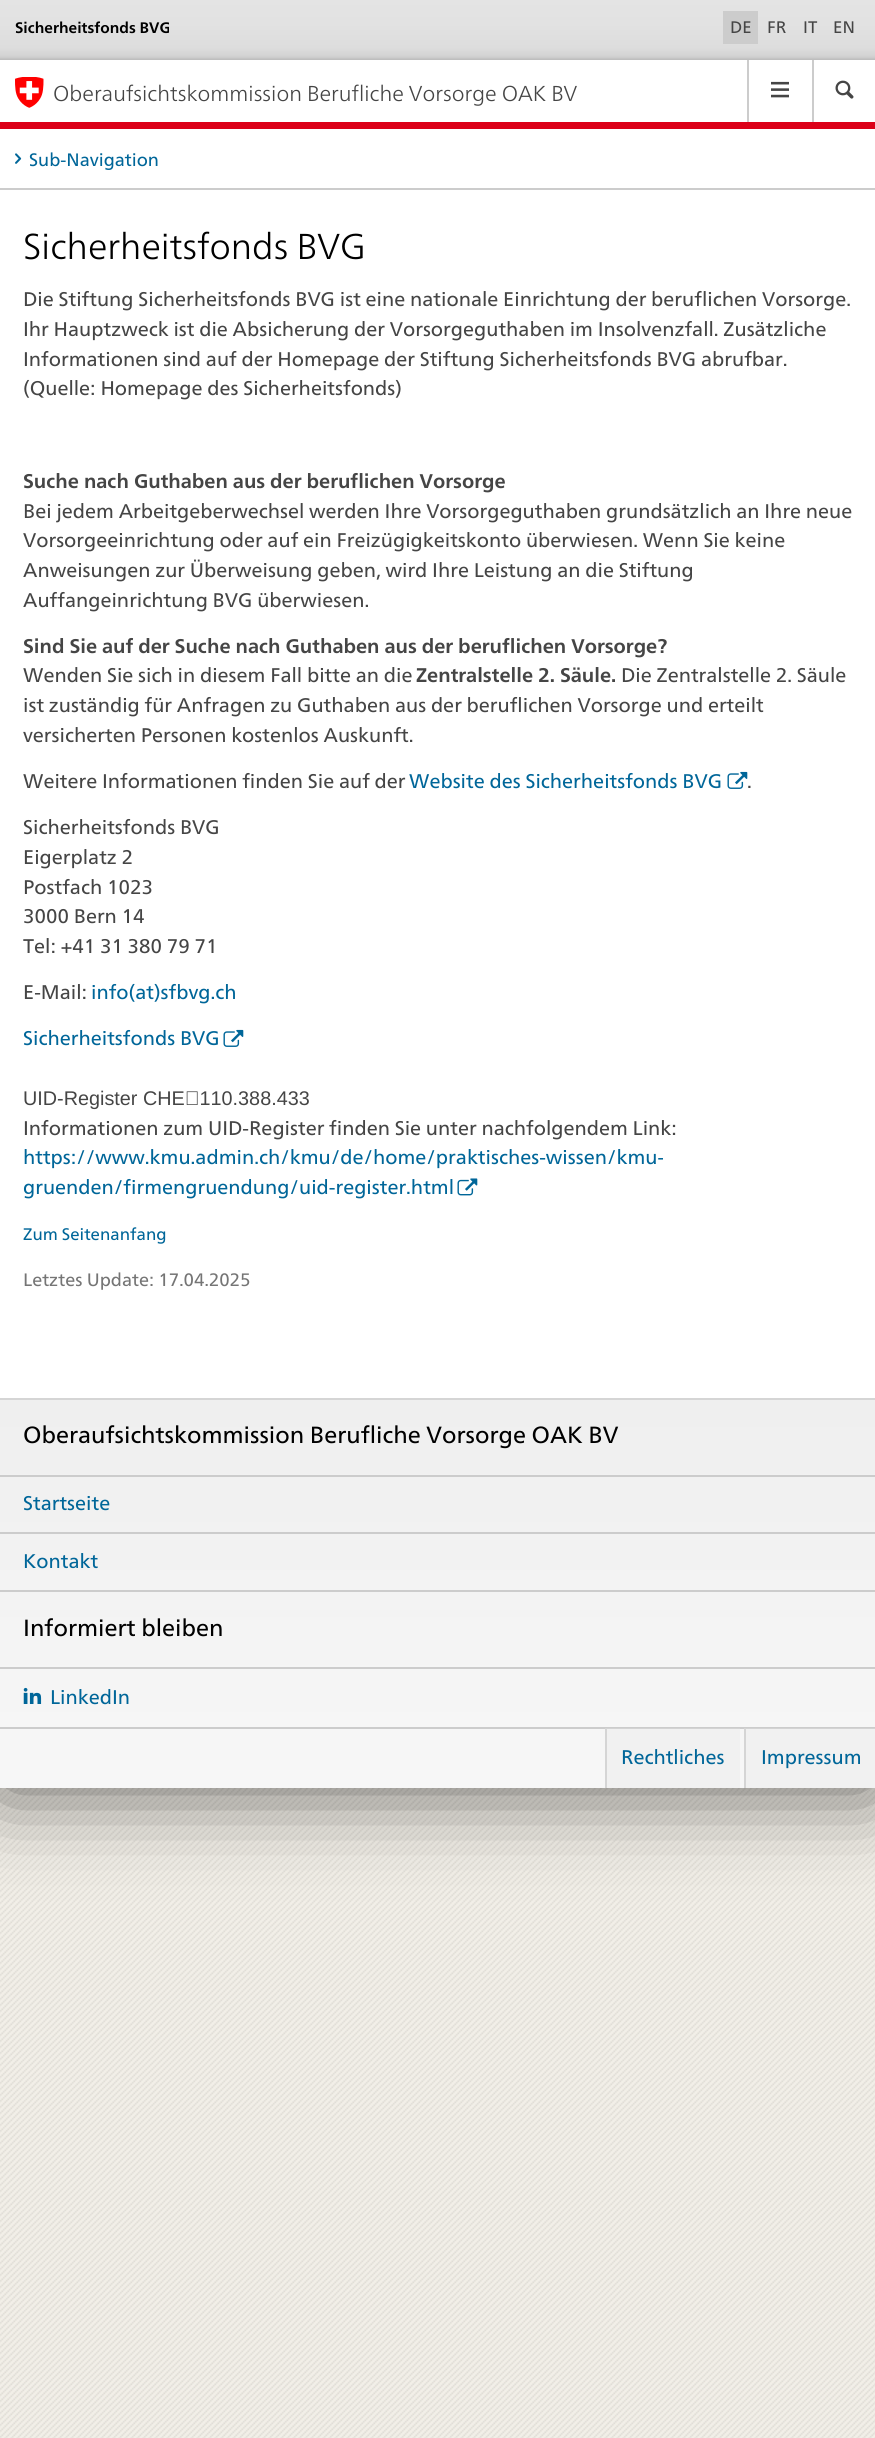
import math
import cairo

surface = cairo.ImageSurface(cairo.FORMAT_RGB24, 875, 2438)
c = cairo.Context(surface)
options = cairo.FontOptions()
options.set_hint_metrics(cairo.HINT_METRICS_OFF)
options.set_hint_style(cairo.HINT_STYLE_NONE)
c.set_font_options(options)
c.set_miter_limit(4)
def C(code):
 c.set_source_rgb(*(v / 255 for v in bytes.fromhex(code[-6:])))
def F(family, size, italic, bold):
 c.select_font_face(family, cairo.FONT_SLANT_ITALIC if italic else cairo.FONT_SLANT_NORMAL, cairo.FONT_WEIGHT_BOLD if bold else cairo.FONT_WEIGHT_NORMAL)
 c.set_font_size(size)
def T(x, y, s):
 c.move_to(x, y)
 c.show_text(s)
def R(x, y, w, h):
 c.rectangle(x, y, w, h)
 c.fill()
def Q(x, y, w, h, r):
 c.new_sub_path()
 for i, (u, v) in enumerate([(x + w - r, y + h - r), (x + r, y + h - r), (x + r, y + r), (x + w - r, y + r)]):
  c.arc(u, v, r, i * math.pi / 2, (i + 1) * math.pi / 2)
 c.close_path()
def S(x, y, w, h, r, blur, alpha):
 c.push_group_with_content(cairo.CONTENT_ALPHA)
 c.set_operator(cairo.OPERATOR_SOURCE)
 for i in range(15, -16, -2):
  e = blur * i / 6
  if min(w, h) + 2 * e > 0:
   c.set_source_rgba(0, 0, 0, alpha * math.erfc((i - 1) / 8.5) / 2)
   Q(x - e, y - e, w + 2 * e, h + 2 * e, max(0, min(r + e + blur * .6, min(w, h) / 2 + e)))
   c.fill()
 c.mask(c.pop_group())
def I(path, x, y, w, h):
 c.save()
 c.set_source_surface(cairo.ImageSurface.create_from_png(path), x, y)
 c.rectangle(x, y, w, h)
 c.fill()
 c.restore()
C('ffffff')
c.paint()
I('1.png',0,1788,875,650)
C('000000')
S(0,0,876,1788,0,45,.6)
C('ffffff')
R(0,60,875,1338)
gradient = cairo.LinearGradient(438,0,438,60)
gradient.add_color_stop_rgba(0,0.894,0.894,0.894,1)
gradient.add_color_stop_rgba(.39,0.886,0.886,0.886,1)
gradient.add_color_stop_rgba(.79,0.867,0.867,0.867,1)
gradient.add_color_stop_rgba(.91,0.835,0.835,0.835,1)
gradient.add_color_stop_rgba(.95,0.812,0.812,0.812,1)
gradient.add_color_stop_rgba(.99,0.745,0.745,0.745,1)
c.set_source(gradient)
R(0,0,875,60)
F('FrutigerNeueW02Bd',15.25,0,1)
C('000000')
T(15,33,'Sicherheitsfonds BVG')
C('cccccc')
R(723,11,35,33)
F('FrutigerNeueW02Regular',16.75,0,0)
C('454545')
T(730,33,'DE')
T(767,33,'FR')
T(803,33,'IT')
T(833,33,'EN')
C('dc0018')
R(0,122,875,7)
I('2.png',15,77,29,31)
F('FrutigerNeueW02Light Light',21.6,0,0)
C('454545')
T(53,101,'Oberaufsichtskommission Berufliche Vorsorge OAK BV')
C('cccccc')
R(747,60,2,62)
I('3.png',771,81,18,17)
R(812,60,2,62)
I('4.png',835,80,19,19)
R(0,188,875,2)
I('5.png',15,153,7,11)
F('FrutigerNeueW02Regular',18,0,0)
C('006699')
T(29,166,'Sub-Navigation')
F('FrutigerNeueW02Light Light',36,0,0)
C('000000')
T(23,259,'Sicherheitsfonds BVG')
F('FrutigerNeueW02Regular',19.8,0,0)
C('454545')
T(23,306,'Die Stiftung Sicherheitsfonds BVG ist eine nationale Einrichtung der beruflichen Vorsorge.')
T(23,336,'Ihr Hauptzweck ist die Absicherung der Vorsorgeguthaben im Insolvenzfall. Zusätzliche')
T(23,366,'Informationen sind auf der Homepage der Stiftung Sicherheitsfonds BVG abrufbar.')
T(23,395,'(Quelle: Homepage des Sicherheitsfonds)')
F('FrutigerNeueW02Bd',19.8,0,1)
T(23,488,'Suche nach Guthaben aus der beruflichen Vorsorge')
F('FrutigerNeueW02Regular',19.8,0,0)
T(23,518,'Bei jedem Arbeitgeberwechsel werden Ihre Vorsorgeguthaben grundsätzlich an Ihre neue')
T(23,547,'Vorsorgeeinrichtung oder auf ein Freizügigkeitskonto überwiesen. Wenn Sie keine')
T(23,577,'Anweisungen zur Überweisung geben, wird Ihre Leistung an die Stiftung')
T(23,607,'Auffangeinrichtung BVG überwiesen.')
F('FrutigerNeueW02Bd',19.8,0,1)
T(23,653,'Sind Sie auf der Suche nach Guthaben aus der beruflichen Vorsorge?')
F('FrutigerNeueW02Regular',19.8,0,0)
T(23,682,'Wenden Sie sich in diesem Fall bitte an die')
F('FrutigerNeueW02Bd',19.8,0,1)
T(416,682,'Zentralstelle 2. Säule.')
F('FrutigerNeueW02Regular',19.8,0,0)
T(621,682,'Die Zentralstelle 2. Säule')
T(23,712,'ist zuständig für Anfragen zu Guthaben aus der beruflichen Vorsorge und erteilt')
T(23,742,'versicherten Personen kostenlos Auskunft.')
T(23,788,'Weitere Informationen finden Sie auf der')
C('006699')
T(409,788,'Website des Sicherheitsfonds BVG')
C('454545')
T(747,788,'.')
I('6.png',727,771,21,18)
T(23,834,'Sicherheitsfonds BVG')
T(23,864,'Eigerplatz 2')
T(23,894,'Postfach 1023')
T(23,923,'3000 Bern 14')
T(23,953,'Tel: +41 31 380 79 71')
T(23,999,'E-Mail:')
C('006699')
T(91,999,'info(at)sfbvg.ch')
T(23,1045,'Sicherheitsfonds BVG')
I('7.png',223,1029,21,18)
F('Liberation Sans',19.8,0,0)
C('454545')
T(23,1105,'UID-Register CHE‑110.388.433')
F('FrutigerNeueW02Regular',19.8,0,0)
T(23,1135,'Informationen zum UID-Register finden Sie unter nachfolgendem Link:')
C('006699')
T(23,1164,'https://www.kmu.admin.ch/kmu/de/home/praktisches-wissen/kmu-')
T(23,1194,'gruenden/firmengruendung/uid-register.html')
I('8.png',457,1178,21,18)
F('FrutigerNeueW02Regular',16.75,0,0)
T(23,1240,'Zum Seitenanfang')
F('FrutigerNeueW02Regular',18,0,0)
C('757575')
T(23,1286,'Letztes Update: 17.04.2025')
gradient = cairo.LinearGradient(438,1400,438,1788)
gradient.add_color_stop_rgba(0,0.937,0.937,0.937,1)
gradient.add_color_stop_rgba(1,0.969,0.969,0.969,1)
c.set_source(gradient)
R(0,1400,875,388)
C('d5d5d5')
R(0,1398,875,2)
F('FrutigerNeueW02Regular',23.4,0,0)
C('000000')
T(23,1443,'Oberaufsichtskommission Berufliche Vorsorge OAK BV')
C('cccccc')
R(0,1590,875,2)
R(0,1475,875,2)
F('FrutigerNeueW02Regular',19.8,0,0)
C('006699')
T(23,1510,'Startseite')
C('cccccc')
R(0,1532,875,2)
C('006699')
T(23,1568,'Kontakt')
F('FrutigerNeueW02Regular',23.4,0,0)
C('000000')
T(23,1636,'Informiert bleiben')
C('cccccc')
R(0,1727,875,2)
R(0,1667,875,2)
I('9.png',23,1687,19,17)
F('FrutigerNeueW02Regular',19.8,0,0)
C('006699')
T(50,1704,'LinkedIn')
c.set_source_rgba(0.898,0.898,0.898,0.3)
R(607,1728,133,60)
C('d5d5d5')
R(605,1728,2,60)
C('006699')
T(621,1764,'Rechtliches')
c.set_source_rgba(0.898,0.898,0.898,0.3)
R(746,1728,129,60)
C('d5d5d5')
R(744,1728,2,60)
C('006699')
T(761,1764,'Impressum')
surface.write_to_png('o.png')
